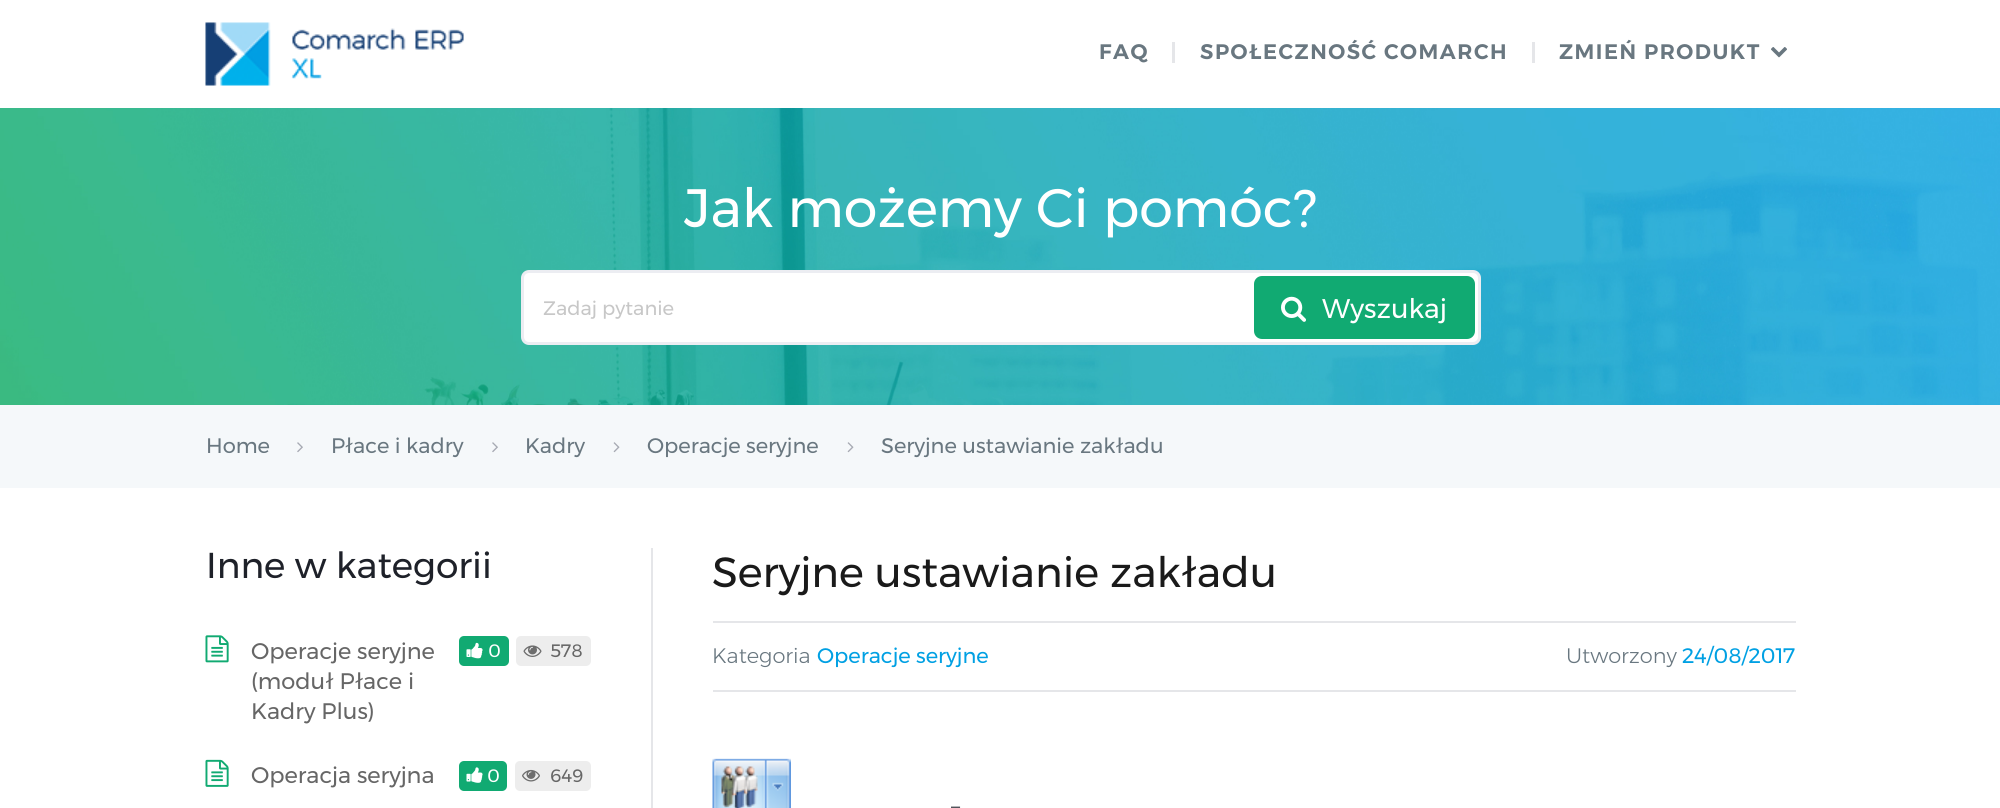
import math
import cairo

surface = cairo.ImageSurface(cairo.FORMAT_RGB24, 2000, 808)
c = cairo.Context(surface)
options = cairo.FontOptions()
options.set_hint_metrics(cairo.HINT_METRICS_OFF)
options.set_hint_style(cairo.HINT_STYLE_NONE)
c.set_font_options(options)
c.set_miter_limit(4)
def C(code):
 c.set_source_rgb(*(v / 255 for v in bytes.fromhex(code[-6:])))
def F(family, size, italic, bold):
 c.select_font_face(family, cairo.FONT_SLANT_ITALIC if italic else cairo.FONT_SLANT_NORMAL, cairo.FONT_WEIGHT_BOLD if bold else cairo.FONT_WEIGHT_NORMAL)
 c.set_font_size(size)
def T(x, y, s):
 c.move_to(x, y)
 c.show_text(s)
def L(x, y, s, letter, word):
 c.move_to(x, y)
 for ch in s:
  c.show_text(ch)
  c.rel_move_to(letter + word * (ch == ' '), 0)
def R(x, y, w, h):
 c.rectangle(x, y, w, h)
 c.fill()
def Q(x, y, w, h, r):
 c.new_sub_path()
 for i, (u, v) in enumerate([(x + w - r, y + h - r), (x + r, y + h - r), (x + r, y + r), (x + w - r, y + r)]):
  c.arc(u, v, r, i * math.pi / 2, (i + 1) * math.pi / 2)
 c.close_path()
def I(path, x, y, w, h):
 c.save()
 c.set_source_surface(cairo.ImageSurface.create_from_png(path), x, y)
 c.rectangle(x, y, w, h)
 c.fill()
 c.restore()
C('ffffff')
c.paint()
I('1.png',205,22,259,64)
F('Montserrat SemiBold',21,0,0)
C('697780')
L(1099,59,'FAQ',1.5,0)
C('e5e6e9')
R(1172,42,3,21)
C('697780')
L(1200,59,'SPOŁECZNOŚĆ COMARCH',1.5,0)
C('e5e6e9')
R(1532,42,3,21)
C('697780')
L(1559,59,'ZMIEŃ PRODUKT',1.5,0)
I('2.png',1771,47,16,11)
I('3.png',0,108,2000,297)
F('Montserrat',54,0,0)
C('ffffff')
T(684,227,'Jak możemy Ci pomóc?')
Q(522.5,271.5,957,72,6.5)
c.fill_preserve()
C('ecedf2')
c.set_line_width(3)
c.stroke()
F('Montserrat',19.5,0,0)
C('c7c7c7')
T(543,315,'Zadaj pytanie')
C('11aa72')
Q(1254,276,221,63,8)
c.fill()
I('4.png',1281,296,25,26)
F('Montserrat',27,0,0)
C('ffffff')
T(1322,318,'Wyszukaj')
C('f5f8fa')
R(0,405,2000,83)
F('Montserrat',21,0,0)
C('697780')
T(206,453,'Home')
I('5.png',297,442,6,11)
T(331,453,'Płace i kadry')
I('5.png',492,442,6,11)
T(525,453,'Kadry')
I('6.png',613,442,7,11)
T(647,453,'Operacje seryjne')
I('6.png',847,442,7,11)
T(881,453,'Seryjne ustawianie zakładu')
F('Montserrat',36,0,0)
C('1e2129')
T(206,578,'Inne w kategorii')
I('7.png',205,635,24,28)
F('Montserrat',22.5,0,0)
C('666666')
T(251,659,'Operacje seryjne')
C('11aa72')
Q(459,636,50,30,5)
c.fill()
I('8.png',466,642,17,17)
F('Montserrat',18,0,0)
C('ffffff')
T(488,657,'0')
C('ededed')
Q(516,636,75,30,5)
c.fill()
I('9.png',523,645,19,12)
C('666666')
T(550,657,'578')
F('Montserrat',22.5,0,0)
T(251,689,'(moduł Płace i')
T(251,719,'Kadry Plus)')
I('10.png',205,759,24,28)
T(251,783,'Operacja seryjna')
C('11aa72')
Q(459,761,48,30,5)
c.fill()
I('11.png',466,767,17,16)
F('Montserrat',18,0,0)
C('ffffff')
T(487,782,'0')
C('ededed')
Q(515,761,76,30,5)
c.fill()
I('12.png',522,769,18,13)
C('666666')
T(550,782,'649')
C('e5e6e9')
R(651,548,2,260)
F('Montserrat',42,0,0)
C('1a1a1a')
T(712,587,'Seryjne ustawianie zakładu')
C('e5e6e9')
R(713,621,1083,2)
R(713,690,1083,2)
F('Montserrat Light',21,0,0)
C('697780')
T(712,663,'Kategoria')
F('Montserrat',21,0,0)
C('00a0e3')
T(817,663,'Operacje seryjne')
F('Montserrat Light',21,0,0)
C('697780')
T(1566,663,'Utworzony')
F('Montserrat',21,0,0)
C('00a0e3')
T(1682,663,'24/08/2017')
I('13.png',712,758,79,50)
F('Montserrat Light',22.5,0,0)
C('1e2129')
T(951,814,'–')
surface.write_to_png('o.png')
